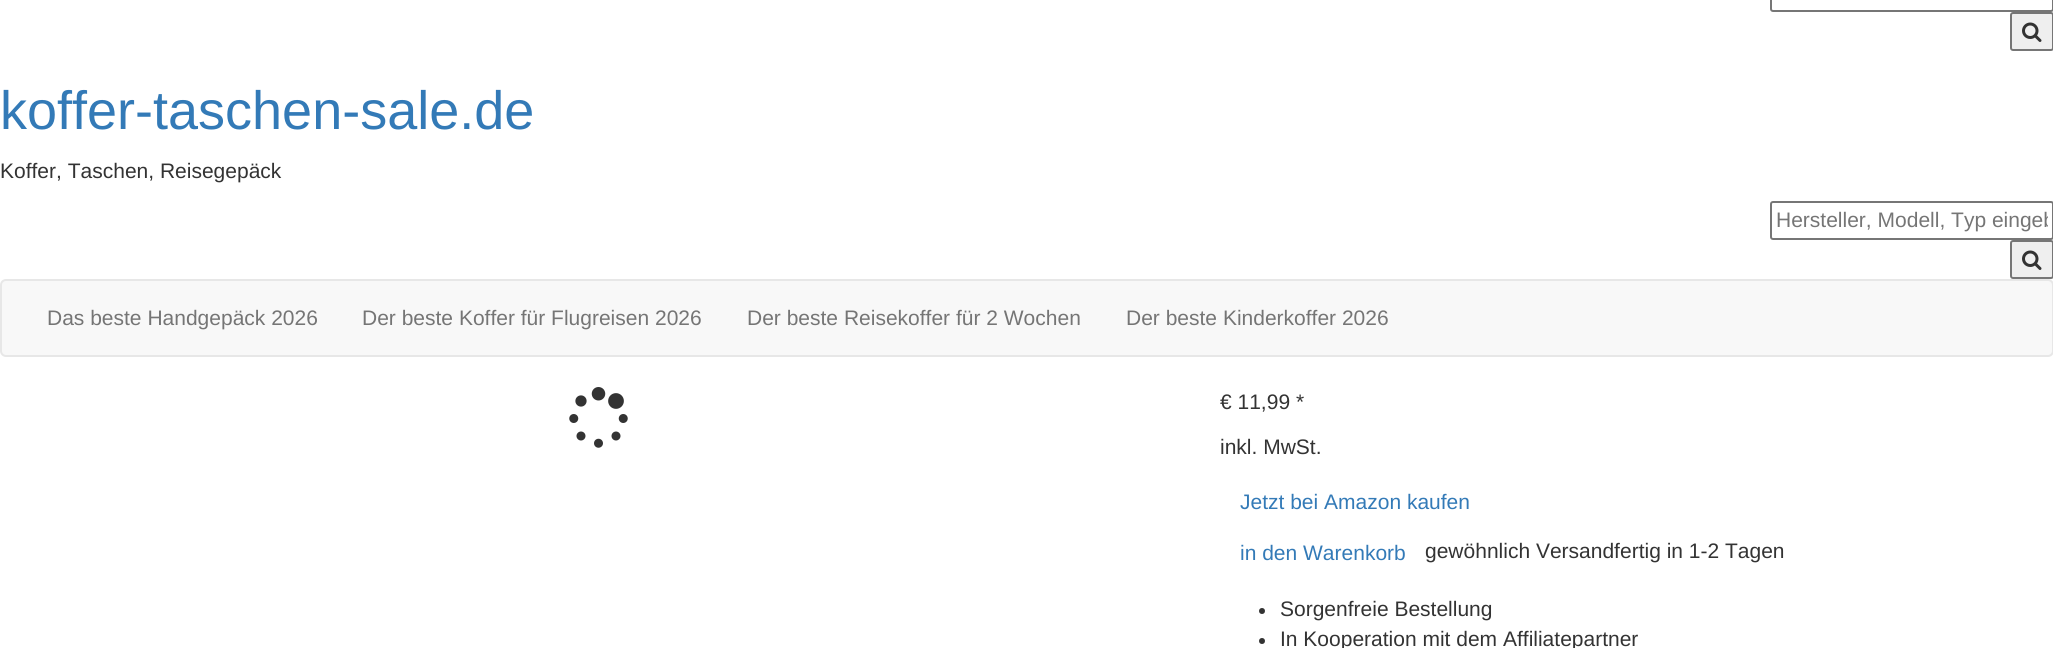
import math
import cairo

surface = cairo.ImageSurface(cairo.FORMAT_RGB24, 2053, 648)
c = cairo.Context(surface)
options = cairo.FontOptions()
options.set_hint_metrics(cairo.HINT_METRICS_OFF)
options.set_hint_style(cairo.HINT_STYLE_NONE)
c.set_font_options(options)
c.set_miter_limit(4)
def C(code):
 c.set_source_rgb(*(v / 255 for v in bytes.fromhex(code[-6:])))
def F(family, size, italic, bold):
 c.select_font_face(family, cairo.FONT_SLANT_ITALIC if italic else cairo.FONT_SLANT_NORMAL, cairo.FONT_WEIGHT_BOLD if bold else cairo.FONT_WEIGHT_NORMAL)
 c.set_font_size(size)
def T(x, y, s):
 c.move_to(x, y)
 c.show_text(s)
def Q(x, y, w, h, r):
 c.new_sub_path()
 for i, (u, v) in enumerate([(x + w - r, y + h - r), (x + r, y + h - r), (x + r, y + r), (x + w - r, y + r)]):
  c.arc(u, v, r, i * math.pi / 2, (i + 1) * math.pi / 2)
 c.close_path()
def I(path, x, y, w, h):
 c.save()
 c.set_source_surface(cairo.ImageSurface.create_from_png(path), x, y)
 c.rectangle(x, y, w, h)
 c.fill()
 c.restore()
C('ffffff')
c.paint()
Q(1771,-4,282,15,2)
C('767676')
c.stroke()
C('efefef')
Q(2011,13,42,37,2)
c.fill_preserve()
C('767676')
c.stroke()
I('1.png',2022,22,20,20)
F('Liberation Sans',54,0,0)
C('337ab7')
T(0,129,'koffer-taschen-sale.de')
F('Liberation Sans',21,0,0)
C('333333')
T(0,178,'Koffer, Taschen, Reisegepäck')
Q(1771,202,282,37,2)
C('767676')
c.stroke()
c.save()
c.rectangle(1776,209,272,24)
c.clip()
C('757575')
T(1776,227,'Hersteller, Modell, Typ eingeb')
c.restore()
C('efefef')
Q(2011,241,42,37,2)
c.fill_preserve()
C('767676')
c.stroke()
I('1.png',2022,250,20,20)
C('f8f8f8')
Q(1,280,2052,76,5)
c.fill_preserve()
C('e7e7e7')
c.stroke()
C('757575')
T(47,325,'Das beste Handgepäck 2026')
T(362,325,'Der beste Koffer für Flugreisen 2026')
T(747,325,'Der beste Reisekoffer für 2 Wochen')
T(1126,325,'Der beste Kinderkoffer 2026')
I('2.png',569,387,59,61)
C('333333')
T(1220,409,'€ 11,99 *')
T(1220,454,'inkl. MwSt.')
C('337ab7')
T(1240,509,'Jetzt bei Amazon kaufen')
T(1240,560,'in den Warenkorb')
C('333333')
T(1425,558,'gewöhnlich Versandfertig in 1-2 Tagen')
c.new_path()
c.arc(1262,611,3,0,2 * math.pi)
c.fill()
T(1280,616,'Sorgenfreie Bestellung')
c.new_path()
c.arc(1262,641,3,0,2 * math.pi)
c.fill()
T(1280,646,'In Kooperation mit dem Affiliatepartner')
surface.write_to_png('o.png')
